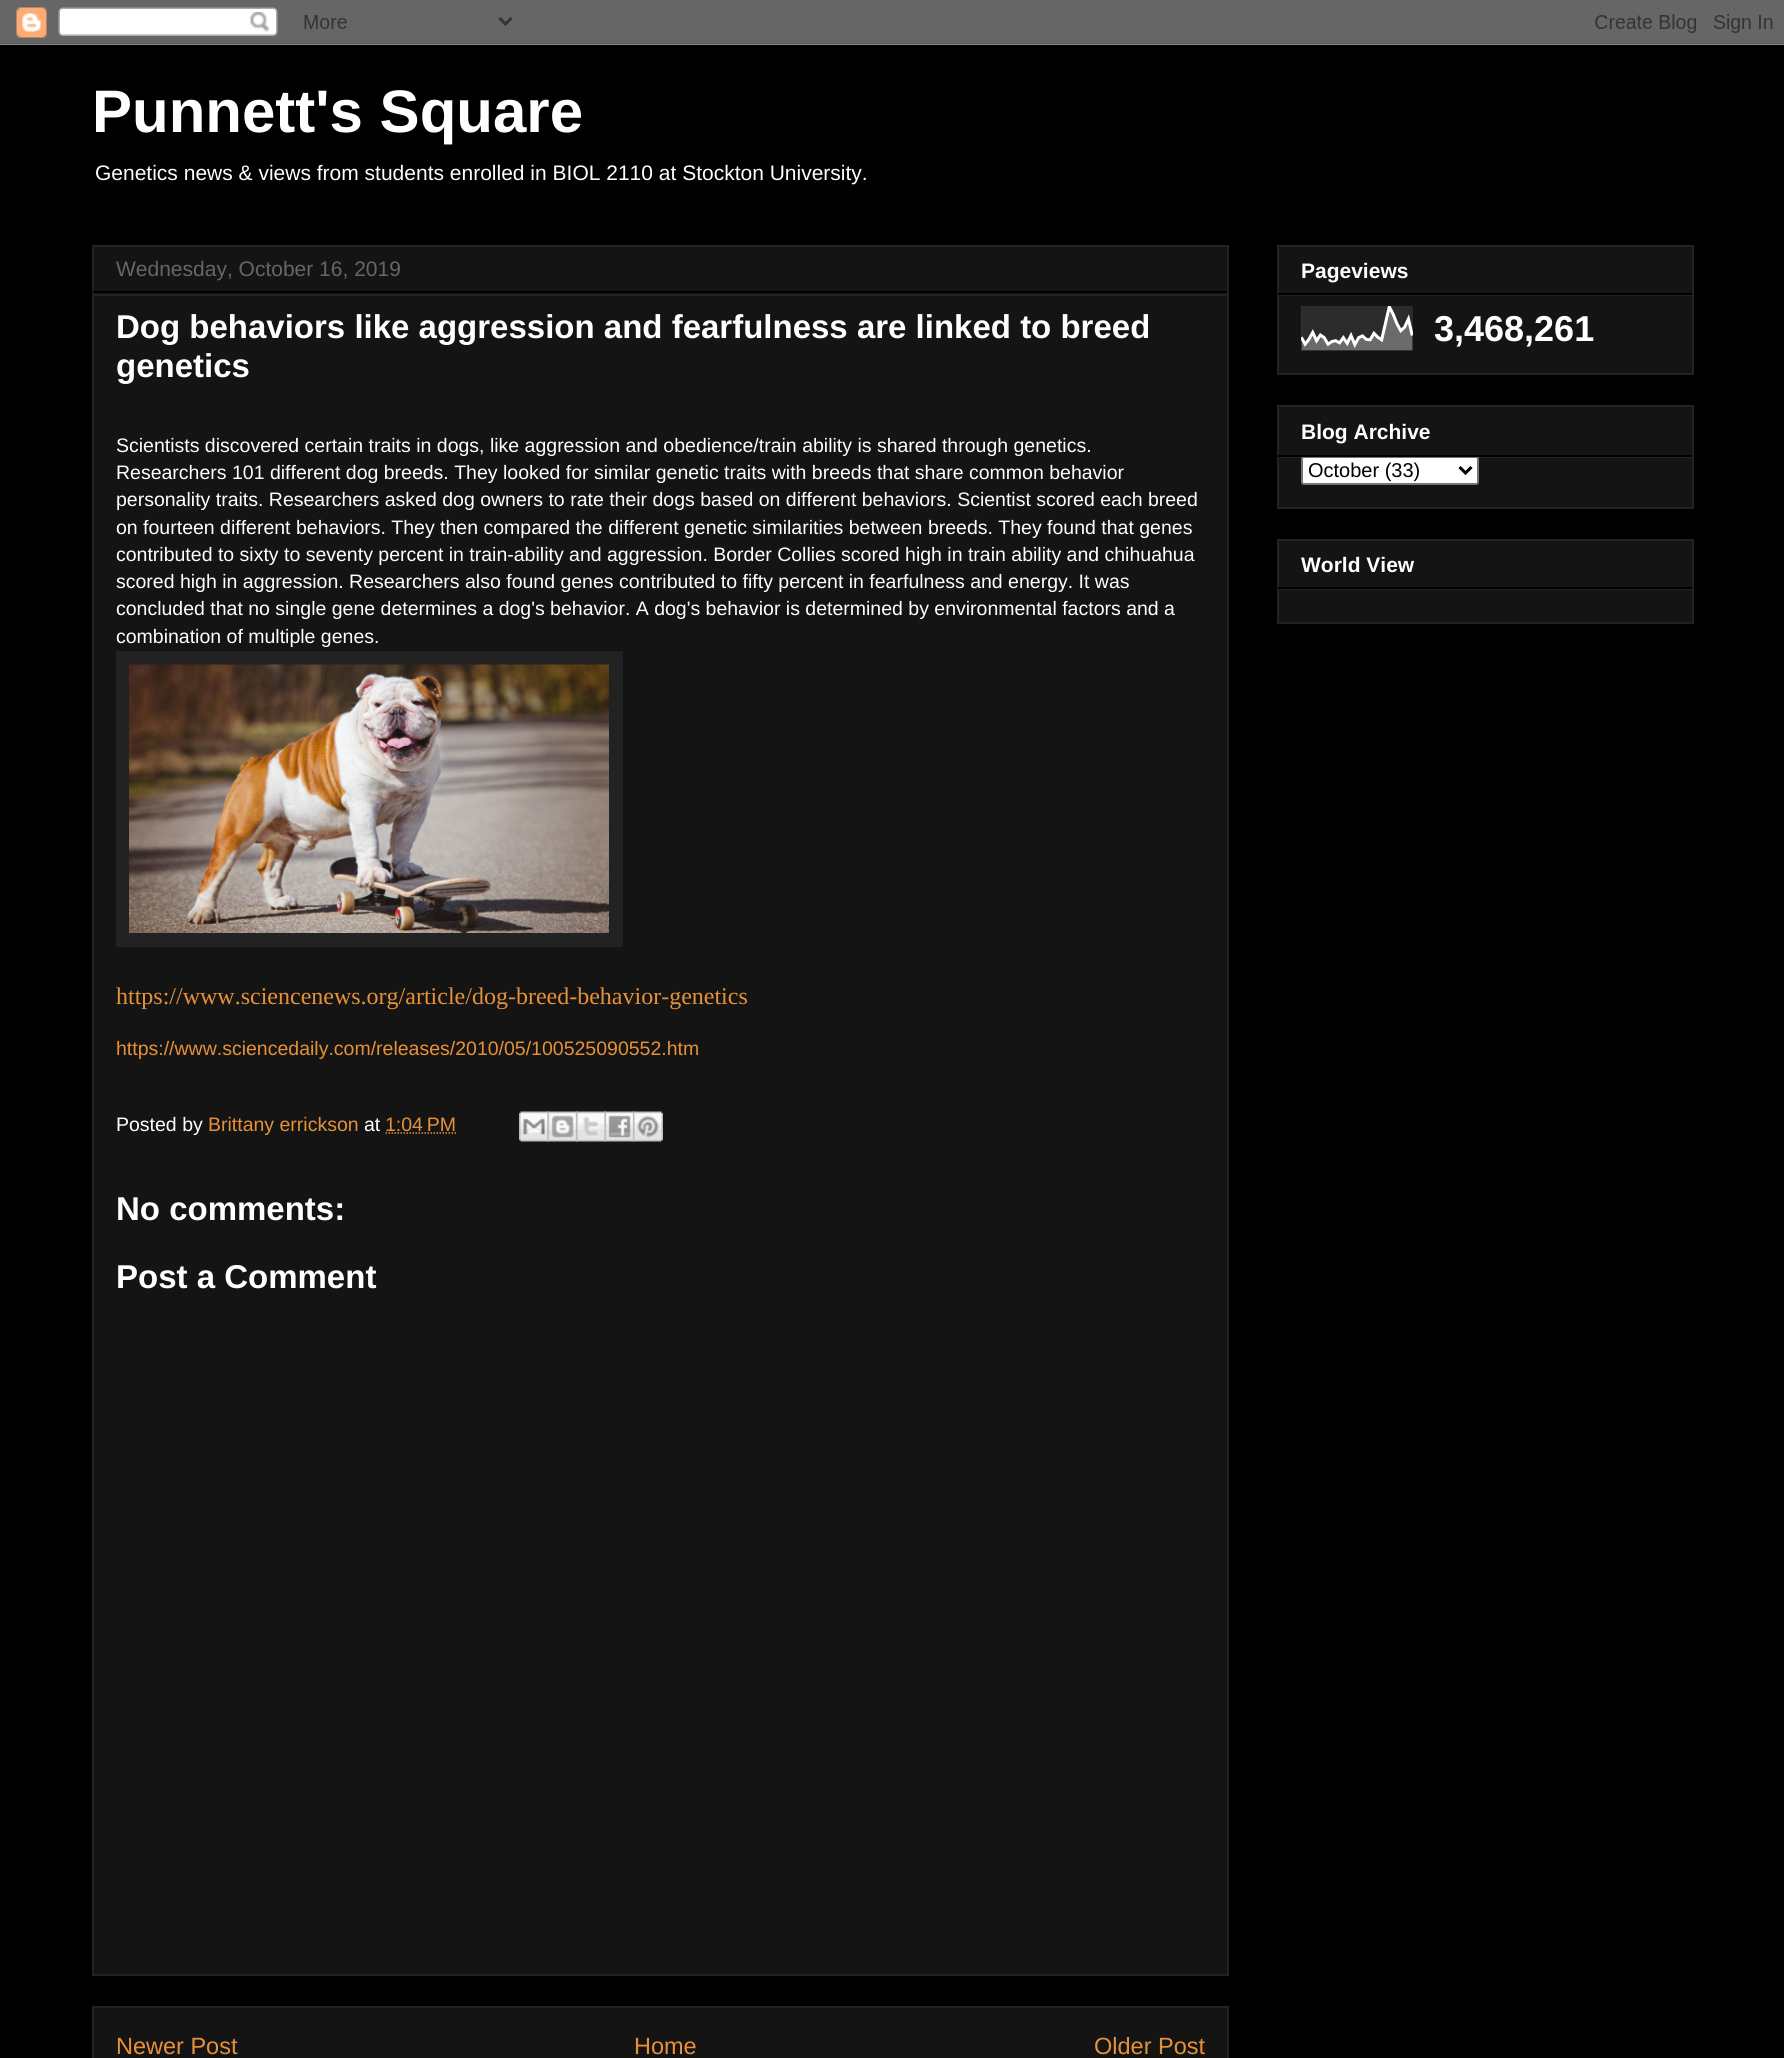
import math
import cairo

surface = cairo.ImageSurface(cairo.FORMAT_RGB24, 1784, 2058)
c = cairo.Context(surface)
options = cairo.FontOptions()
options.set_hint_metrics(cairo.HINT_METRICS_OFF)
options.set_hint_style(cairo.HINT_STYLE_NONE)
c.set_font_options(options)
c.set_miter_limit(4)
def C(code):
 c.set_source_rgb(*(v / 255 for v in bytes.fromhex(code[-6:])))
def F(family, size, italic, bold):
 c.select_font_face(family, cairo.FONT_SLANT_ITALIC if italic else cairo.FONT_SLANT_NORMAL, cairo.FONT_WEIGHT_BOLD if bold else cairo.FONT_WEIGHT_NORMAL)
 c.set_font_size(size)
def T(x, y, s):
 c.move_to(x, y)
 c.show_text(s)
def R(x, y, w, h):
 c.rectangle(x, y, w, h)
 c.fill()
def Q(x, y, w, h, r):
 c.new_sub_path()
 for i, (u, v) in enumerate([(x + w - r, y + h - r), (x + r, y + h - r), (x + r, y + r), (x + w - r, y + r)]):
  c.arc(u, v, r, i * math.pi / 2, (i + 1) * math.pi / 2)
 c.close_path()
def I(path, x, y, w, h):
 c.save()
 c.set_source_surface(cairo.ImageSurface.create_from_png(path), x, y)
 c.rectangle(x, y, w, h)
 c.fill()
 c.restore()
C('000000')
c.paint()
I('1.png',0,0,1784,45)
F('Liberation Sans',60,0,1)
C('ffffff')
T(92,132,'Punnett\'s Square')
F('Liberation Sans',21,0,0)
T(95,180,'Genetics news & views from students enrolled in BIOL 2110 at Stockton University.')
C('141414')
c.rectangle(93,246,1135,1729)
c.fill_preserve()
C('222222')
c.stroke()
C('000000')
R(93,291,1134,2)
C('666666')
T(116,276,'Wednesday, October 16, 2019')
C('222222')
R(93,294,1134,2)
F('Liberation Sans',33,0,1)
C('ffffff')
T(116,338,'Dog behaviors like aggression and fearfulness are linked to breed')
T(116,377,'genetics')
F('Liberation Sans',19.5,0,0)
T(116,452,'Scientists discovered certain traits in dogs, like aggression and obedience/train ability is shared through genetics.')
T(116,479,'Researchers 101 different dog breeds. They looked for similar genetic traits with breeds that share common behavior')
T(116,506,'personality traits. Researchers asked dog owners to rate their dogs based on different behaviors. Scientist scored each breed')
T(116,534,'on fourteen different behaviors. They then compared the different genetic similarities between breeds. They found that genes')
T(116,561,'contributed to sixty to seventy percent in train-ability and aggression. Border Collies scored high in train ability and chihuahua')
T(116,588,'scored high in aggression. Researchers also found genes contributed to fifty percent in fearfulness and energy. It was')
T(116,615,'concluded that no single gene determines a dog\'s behavior. A dog\'s behavior is determined by environmental factors and a')
T(116,643,'combination of multiple genes.')
C('222222')
R(116,651,507,296)
I('2.png',129,664,480,269)
F('Liberation Serif',24,0,0)
C('e69138')
T(116,1004,'https://www.sciencenews.org/article/dog-breed-behavior-genetics')
F('Liberation Sans',19.5,0,0)
T(116,1055,'https://www.sciencedaily.com/releases/2010/05/100525090552.htm')
C('ffffff')
T(116,1131,'Posted by')
C('e69138')
T(208,1131,'Brittany errickson')
C('ffffff')
T(364,1131,'at')
C('e69138')
T(385,1131,'1:04 PM')
c.new_path()
c.move_to(385.5,1133)
c.line_to(456.5,1133)
c.set_line_width(1.5)
c.set_dash([1.5,1.5])
c.stroke()
I('3.png',519,1111,30,31)
I('4.png',547,1111,31,31)
I('5.png',576,1111,30,31)
I('6.png',604,1111,31,31)
I('7.png',633,1111,30,31)
F('Liberation Sans',33,0,1)
C('ffffff')
T(116,1220,'No comments:')
T(116,1288,'Post a Comment')
C('141414')
c.rectangle(93,2007,1135,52)
c.fill_preserve()
C('222222')
c.set_line_width(2)
c.set_dash([])
c.stroke()
F('Liberation Sans',23.5,0,0)
C('e69138')
T(116,2054,'Newer Post')
T(634,2054,'Home')
T(1094,2054,'Older Post')
C('141414')
c.rectangle(1278,246,415,128)
c.fill_preserve()
C('222222')
c.stroke()
C('000000')
R(1278,293,414,2)
F('Liberation Sans',21,0,1)
C('ffffff')
T(1301,278,'Pageviews')
C('222222')
R(1278,295,414,1)
I('8.png',1301,306,112,45)
F('Liberation Sans',36,0,1)
C('ffffff')
T(1434,341,'3,468,261')
C('141414')
c.rectangle(1278,406,415,102)
c.fill_preserve()
C('222222')
c.stroke()
R(1278,457,414,1)
C('ffffff')
Q(1302,457,176,27,2)
c.fill_preserve()
C('767676')
c.stroke()
C('000000')
R(1278,455,414,2)
F('Liberation Sans',21,0,1)
C('ffffff')
T(1301,439,'Blog Archive')
c.new_path()
c.move_to(1459.5,467)
c.line_to(1465.5,473)
c.line_to(1471.5,467)
C('000000')
c.set_line_width(3)
c.stroke()
F('Liberation Sans',20,0,0)
T(1308,477,'October (33)')
C('141414')
c.rectangle(1278,540,415,83)
c.fill_preserve()
C('222222')
c.set_line_width(2)
c.stroke()
C('000000')
R(1278,587,414,2)
F('Liberation Sans',21,0,1)
C('ffffff')
T(1301,572,'World View')
C('222222')
R(1278,589,414,1)
surface.write_to_png('o.png')
